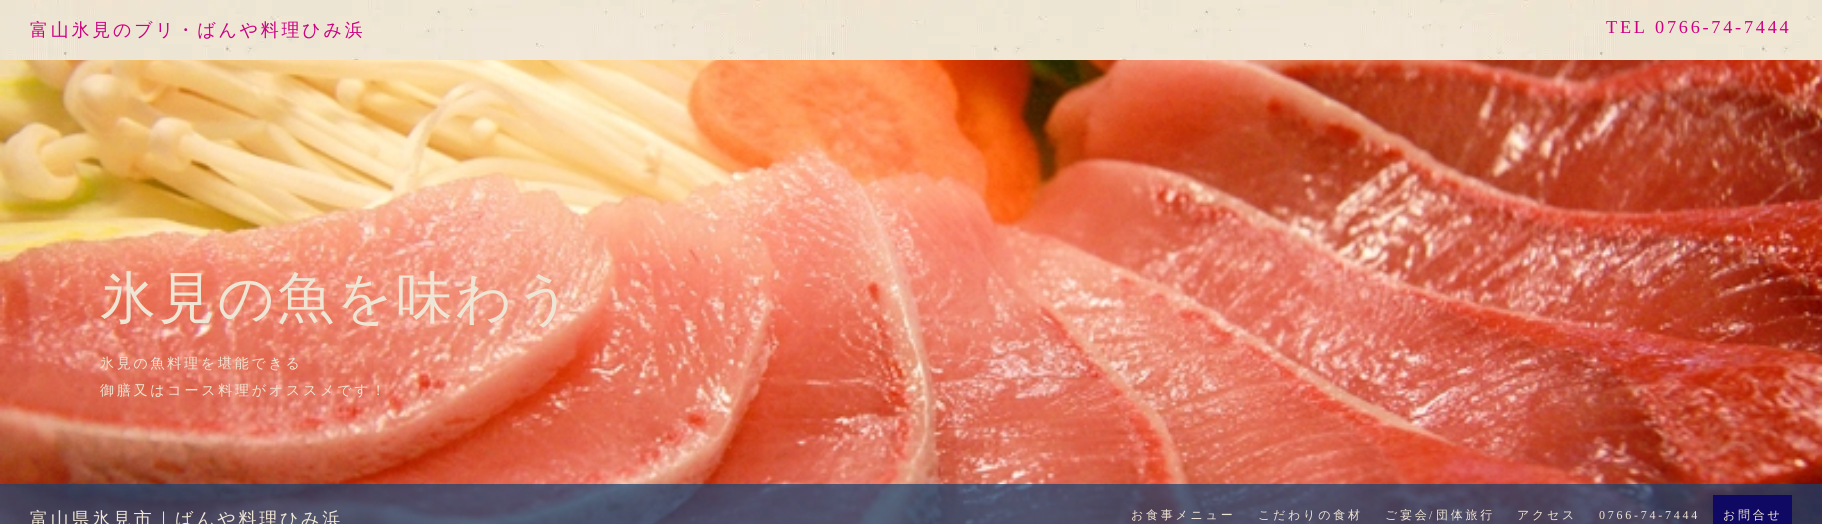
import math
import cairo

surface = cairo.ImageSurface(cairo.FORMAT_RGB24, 1822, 524)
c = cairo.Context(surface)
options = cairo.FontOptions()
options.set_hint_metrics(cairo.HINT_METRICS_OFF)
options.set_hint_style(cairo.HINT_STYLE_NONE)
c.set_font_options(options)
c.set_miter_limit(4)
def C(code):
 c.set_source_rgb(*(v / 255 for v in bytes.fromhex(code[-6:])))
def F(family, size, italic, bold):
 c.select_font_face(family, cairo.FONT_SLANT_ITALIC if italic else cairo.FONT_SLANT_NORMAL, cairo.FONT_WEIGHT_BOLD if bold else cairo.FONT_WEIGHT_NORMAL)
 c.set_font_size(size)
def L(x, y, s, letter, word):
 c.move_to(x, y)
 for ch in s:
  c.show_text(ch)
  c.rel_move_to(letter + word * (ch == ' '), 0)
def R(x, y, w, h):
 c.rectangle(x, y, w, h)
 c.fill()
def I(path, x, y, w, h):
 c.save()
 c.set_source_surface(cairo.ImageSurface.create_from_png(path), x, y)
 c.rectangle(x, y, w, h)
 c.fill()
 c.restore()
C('ffffff')
c.paint()
I('1.png',0,0,1822,60)
F('WenQuanYi Zen Hei Medium',18,0,0)
C('cd0082')
L(30,36,'富山氷見のブリ・ばんや料理ひみ浜',2.75,0)
F('Liberation Serif',18.25,0,0)
L(1606,33,'TEL 0766-74-7444',2.75,0)
I('2.png',0,60,1822,464)
F('WenQuanYi Zen Hei Medium',56,0,0)
C('efe5d4')
L(100,317,'氷見の魚を味わう',2.75,0)
F('WenQuanYi Zen Hei Medium',14,0,0)
L(100,368,'氷見の魚料理を堪能できる',2.75,0)
L(100,395,'御膳又はコース料理がオススメです！',2.75,0)
I('3.png',0,484,1822,40)
F('WenQuanYi Zen Hei Medium',18,0,0)
L(30,525,'富山県氷見市｜ばんや料理ひみ浜',2.75,0)
F('WenQuanYi Zen Hei Medium',12,0,0)
L(1131,519,'お食事メニュー',2.75,0)
L(1258,519,'こだわりの食材',2.75,0)
L(1385,519,'ご宴会 団体旅行',2.75,0)
F('Liberation Serif',12,0,0)
L(1429,519,'/',2.75,0)
F('WenQuanYi Zen Hei Medium',12,0,0)
L(1517,519,'アクセス',2.75,0)
F('Liberation Serif',12,0,0)
L(1599,519,'0766-74-7444',2.75,0)
C('100964')
R(1713,495,79,29)
F('WenQuanYi Zen Hei Medium',12,0,0)
C('efe5d4')
L(1723,519,'お問合せ',2.75,0)
surface.write_to_png('o.png')
